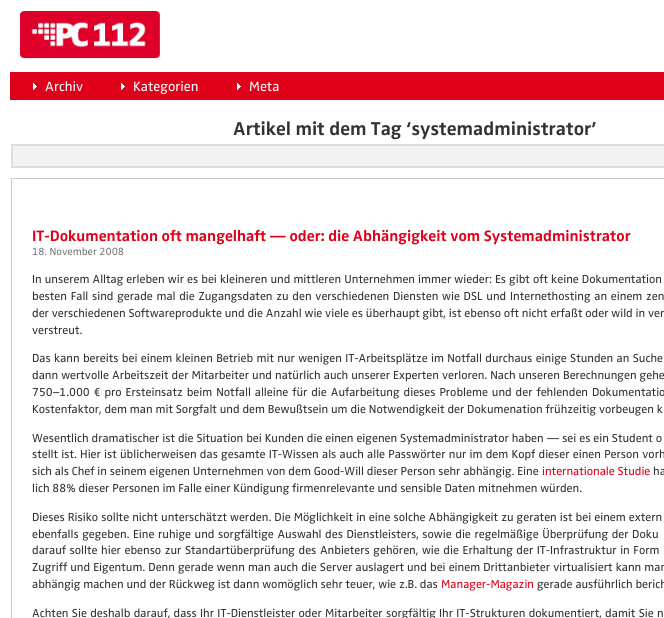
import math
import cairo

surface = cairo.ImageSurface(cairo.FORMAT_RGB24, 664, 618)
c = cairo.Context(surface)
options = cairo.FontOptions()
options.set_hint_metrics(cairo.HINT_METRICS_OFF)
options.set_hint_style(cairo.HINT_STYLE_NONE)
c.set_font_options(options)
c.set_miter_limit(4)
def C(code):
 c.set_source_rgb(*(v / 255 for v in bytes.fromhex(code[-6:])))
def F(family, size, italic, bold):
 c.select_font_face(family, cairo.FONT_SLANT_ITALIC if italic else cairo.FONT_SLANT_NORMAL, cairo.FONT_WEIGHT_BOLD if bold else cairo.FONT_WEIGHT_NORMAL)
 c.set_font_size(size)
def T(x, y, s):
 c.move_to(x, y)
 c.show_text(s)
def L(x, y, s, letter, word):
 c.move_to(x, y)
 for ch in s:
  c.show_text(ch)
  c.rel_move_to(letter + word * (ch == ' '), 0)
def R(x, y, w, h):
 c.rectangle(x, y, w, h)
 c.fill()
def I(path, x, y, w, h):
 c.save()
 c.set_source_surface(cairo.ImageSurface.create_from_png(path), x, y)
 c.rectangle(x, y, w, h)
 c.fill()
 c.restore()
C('ffffff')
c.paint()
I('1.png',20,11,140,48)
C('df0019')
R(10,72,654,28)
I('2.png',33,83,4,7)
F('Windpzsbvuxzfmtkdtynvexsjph',14,0,0)
C('ffffff')
T(45,91,'Archiv')
I('3.png',121,83,5,7)
T(133,91,'Kategorien')
I('2.png',237,83,4,7)
T(249,91,'Meta')
F('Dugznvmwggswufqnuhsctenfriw',19.25,0,1)
C('333333')
T(233,135,'Artikel mit dem Tag ‘systemadministrator’')
C('f3f3f3')
c.rectangle(12,145,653,22)
c.fill_preserve()
C('dddddd')
c.stroke()
c.rectangle(11.5,178.5,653,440)
C('cccbca')
c.set_line_width(1)
c.stroke()
F('Dugznvmwggswufqnuhsctenfriw',15.6,0,1)
C('df0019')
T(32,241,'IT-Dokumentation oft mangelhaft — oder: die Abhängigkeit vom Systemadministrator')
F('Windpzsbvuxzfmtkdtynvexsjph',10.75,0,0)
C('777777')
T(32,255,'18. November 2008')
F('Windpzsbvuxzfmtkdtynvexsjph',12,0,0)
C('333333')
L(32,283,'In unserem Alltag erleben wir es bei kleineren und mittleren Unternehmen immer wieder: Es gibt oft keine Dokumentation',0,.25)
L(32,300,'besten Fall sind gerade mal die Zugangsdaten zu den verschiedenen Diensten wie DSL und Internethosting an einem zen',0,.9)
T(32,317,'der verschiedenen Softwareprodukte und die Anzahl wie viele es überhaupt gibt, ist ebenso oft nicht erfaßt oder wild in ver')
T(32,334,'verstreut.')
L(32,362,'Das kann bereits bei einem kleinen Betrieb mit nur wenigen IT-Arbeitsplätze im Notfall durchaus einige Stunden an Suche',0,.5)
L(32,379,'dann wertvolle Arbeitszeit der Mitarbeiter und natürlich auch unserer Experten verloren. Nach unseren Berechnungen gehe',0,.2)
L(32,396,'750–1.000 € pro Ersteinsatz beim Notfall alleine für die Aufarbeitung dieses Probleme und der fehlenden Dokumentatio',0,1.1)
T(32,413,'Kostenfaktor, dem man mit Sorgfalt und dem Bewußtsein um die Notwendigkeit der Dokumenation frühzeitig vorbeugen k')
L(32,442,'Wesentlich dramatischer ist die Situation bei Kunden die einen eigenen Systemadministrator haben — sei es ein Student o',0,.1)
L(32,458,'stellt ist. Hier ist üblicherweisen das gesamte IT-Wissen als auch alle Passwörter nur im dem Kopf dieser einen Person vorh',0,.4)
T(32,475,'sich als Chef in seinem eigenen Unternehmen von dem Good-Will dieser Person sehr abhängig. Eine')
C('df0019')
T(542,475,'internationale Studie')
C('333333')
T(653,475,'ha')
T(32,492,'lich 88% dieser Personen im Falle einer Kündigung firmenrelevante und sensible Daten mitnehmen würden.')
L(32,521,'Dieses Risiko sollte nicht unterschätzt werden. Die Möglichkeit in eine solche Abhängigkeit zu geraten ist bei einem extern',0,.25)
L(32,538,'ebenfalls gegeben. Eine ruhige und sorgfältige Auswahl des Dienstleisters, sowie die regelmäßige Überprüfung der Doku',0,.75)
L(32,554,'darauf sollte hier ebenso zur Standartüberprüfung des Anbieters gehören, wie die Erhaltung der IT-Infrastruktur in Form',0,.75)
L(32,571,'Zugriff und Eigentum. Denn gerade wenn man auch die Server auslagert und bei einem Drittanbieter virtualisiert kann man',0,.25)
T(32,588,'abhängig machen und der Rückweg ist dann womöglich sehr teuer, wie z.B. das')
C('df0019')
T(441,588,'Manager-Magazin')
C('333333')
T(537,588,'gerade ausführlich berich')
L(32,617,'Achten Sie deshalb darauf, dass Ihr IT-Dienstleister oder Mitarbeiter sorgfältig Ihr IT-Strukturen dokumentiert, damit Sie ni',0,.5)
surface.write_to_png('o.png')
